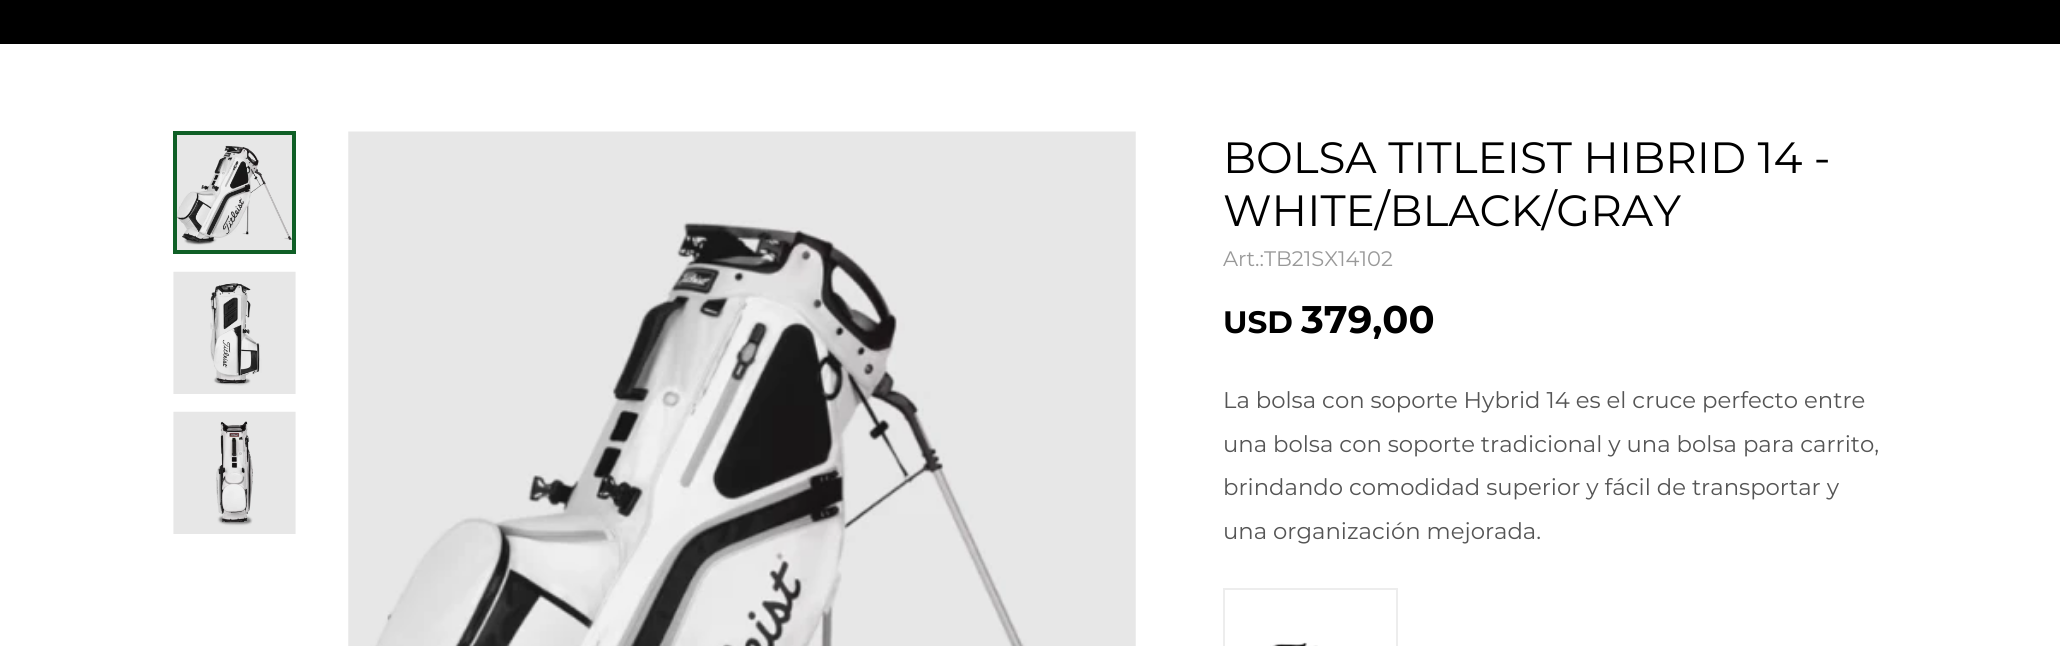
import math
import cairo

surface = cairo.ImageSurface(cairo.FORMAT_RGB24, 2060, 646)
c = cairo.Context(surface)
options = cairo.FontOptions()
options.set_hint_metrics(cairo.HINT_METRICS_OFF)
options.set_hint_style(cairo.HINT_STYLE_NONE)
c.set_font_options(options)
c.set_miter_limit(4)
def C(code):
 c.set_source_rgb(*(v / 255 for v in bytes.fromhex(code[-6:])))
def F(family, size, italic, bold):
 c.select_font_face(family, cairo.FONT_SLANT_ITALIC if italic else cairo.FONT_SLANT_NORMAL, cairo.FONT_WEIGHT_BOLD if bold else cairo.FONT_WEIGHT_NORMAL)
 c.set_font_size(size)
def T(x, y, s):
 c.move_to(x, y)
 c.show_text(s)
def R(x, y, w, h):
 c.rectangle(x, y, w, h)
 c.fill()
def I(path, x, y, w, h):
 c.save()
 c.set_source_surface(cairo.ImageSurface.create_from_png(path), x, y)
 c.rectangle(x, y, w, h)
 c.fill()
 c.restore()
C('ffffff')
c.paint()
C('000000')
R(0,0,2060,44)
I('1.png',177,135,115,115)
c.rectangle(175,133,119,119)
C('0f5f26')
c.set_line_width(4)
c.stroke()
I('2.png',173,271,123,123)
I('3.png',173,411,123,123)
I('4.png',348,131,788,515)
F('Montserrat',43.75,0,0)
C('000000')
T(1223,173,'BOLSA TITLEIST HIBRID 14 -')
T(1223,226,'WHITE/BLACK/GRAY')
F('Montserrat',21,0,0)
C('999999')
T(1223,266,'Art.:TB21SX14102')
F('Montserrat',31,0,1)
C('000000')
T(1223,333,'USD')
F('Montserrat',38.5,0,1)
T(1301,333,'379,00')
F('Montserrat',22.75,0,0)
C('555555')
T(1223,408,'La bolsa con soporte Hybrid 14 es el cruce perfecto entre')
T(1223,452,'una bolsa con soporte tradicional y una bolsa para carrito,')
T(1223,495,'brindando comodidad superior y fácil de transportar y')
T(1223,539,'una organización mejorada.')
c.rectangle(1224,589,173,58)
C('ededed')
c.set_line_width(2)
c.stroke()
I('5.png',1270,642,48,4)
surface.write_to_png('o.png')
